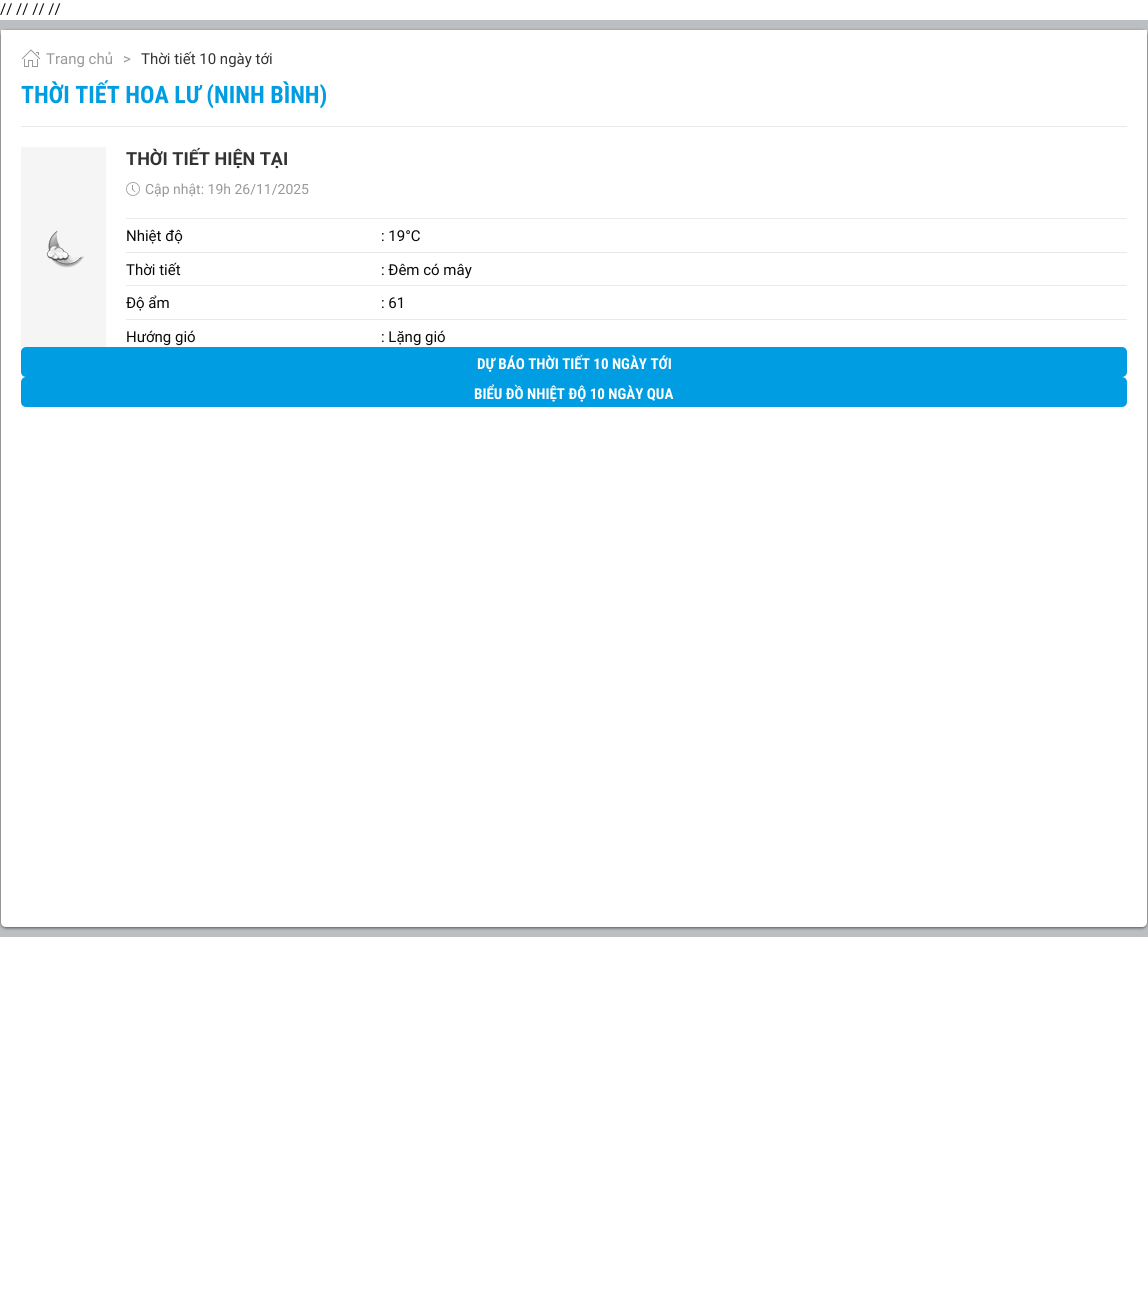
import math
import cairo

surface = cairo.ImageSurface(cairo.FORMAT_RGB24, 1148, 1316)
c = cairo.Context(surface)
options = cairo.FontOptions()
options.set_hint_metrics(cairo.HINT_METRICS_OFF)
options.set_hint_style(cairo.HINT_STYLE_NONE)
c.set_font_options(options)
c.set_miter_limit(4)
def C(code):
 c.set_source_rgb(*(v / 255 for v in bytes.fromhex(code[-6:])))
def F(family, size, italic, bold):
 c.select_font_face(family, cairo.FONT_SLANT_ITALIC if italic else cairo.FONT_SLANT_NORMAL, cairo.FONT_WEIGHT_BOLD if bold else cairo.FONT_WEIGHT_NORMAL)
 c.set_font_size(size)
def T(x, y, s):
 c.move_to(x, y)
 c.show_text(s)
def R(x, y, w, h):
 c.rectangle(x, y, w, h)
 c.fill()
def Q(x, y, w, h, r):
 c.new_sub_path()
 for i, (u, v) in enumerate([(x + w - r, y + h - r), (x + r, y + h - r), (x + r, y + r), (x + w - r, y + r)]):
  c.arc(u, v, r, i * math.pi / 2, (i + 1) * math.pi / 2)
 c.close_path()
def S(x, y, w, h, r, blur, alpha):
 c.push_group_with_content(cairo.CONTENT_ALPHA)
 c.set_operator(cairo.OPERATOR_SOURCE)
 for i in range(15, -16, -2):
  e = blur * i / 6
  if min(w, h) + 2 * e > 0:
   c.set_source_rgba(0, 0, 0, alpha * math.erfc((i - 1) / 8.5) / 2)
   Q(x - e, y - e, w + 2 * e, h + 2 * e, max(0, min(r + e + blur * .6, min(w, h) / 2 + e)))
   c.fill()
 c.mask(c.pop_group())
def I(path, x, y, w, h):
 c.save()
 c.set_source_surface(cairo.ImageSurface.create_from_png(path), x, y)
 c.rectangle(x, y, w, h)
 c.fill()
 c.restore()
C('ffffff')
c.paint()
F('Roboto',15,0,0)
C('0a0a0a')
T(0,14,'// // // //')
C('bcbfc1')
R(0,20,1148,917)
C('312d2d')
S(1,31,1146,897,5,1.5,.74)
C('ffffff')
c.new_path()
c.move_to(1,30)
c.line_to(1147,30)
c.line_to(1147,922)
c.curve_to(1147,925,1145,927,1142,927)
c.line_to(6,927)
c.curve_to(3,927,1,925,1,922)
c.close_path()
c.fill()
I('1.png',21,49,20,18)
C('999999')
T(46,64,'Trang chủ')
T(123,64,'>')
C('333333')
T(141,64,'Thời tiết 10 ngày tới')
F('Roboto Condensed',24,0,1)
C('009de2')
T(21,103,'THỜI TIẾT HOA LƯ (NINH BÌNH)')
C('e9e9e9')
R(21,126,1106,1)
C('f5f5f5')
R(21,147,85,200)
I('2.png',46,230,38,38)
F('Roboto',18,0,1)
C('333333')
T(126,165,'THỜI TIẾT HIỆN TẠI')
I('3.png',126,182,14,14)
F('Roboto',14,0,0)
C('999999')
T(145,194,'Cập nhật: 19h 26/11/2025')
C('e9e9e9')
R(126,218,1001,1)
F('Roboto',15,0,0)
C('0a0a0a')
T(126,241,'Nhiệt độ')
T(381,241,': 19°C')
C('e9e9e9')
R(126,252,1001,1)
C('0a0a0a')
T(126,275,'Thời tiết')
T(381,275,': Đêm có mây')
C('e9e9e9')
R(126,285,1001,1)
C('0a0a0a')
T(126,308,'Độ ẩm')
T(381,308,': 61')
C('e9e9e9')
R(126,319,1001,1)
C('0a0a0a')
T(126,342,'Hướng gió')
T(381,342,': Lặng gió')
C('009de2')
Q(21,347,1106,30,5)
c.fill()
F('Roboto Condensed',15,0,1)
C('ffffff')
T(477,369,'DỰ BÁO THỜI TIẾT 10 NGÀY TỚI')
C('009de2')
Q(21,377,1106,30,5)
c.fill()
C('ffffff')
T(474,399,'BIỂU ĐỒ NHIỆT ĐỘ 10 NGÀY QUA')
surface.write_to_png('o.png')
